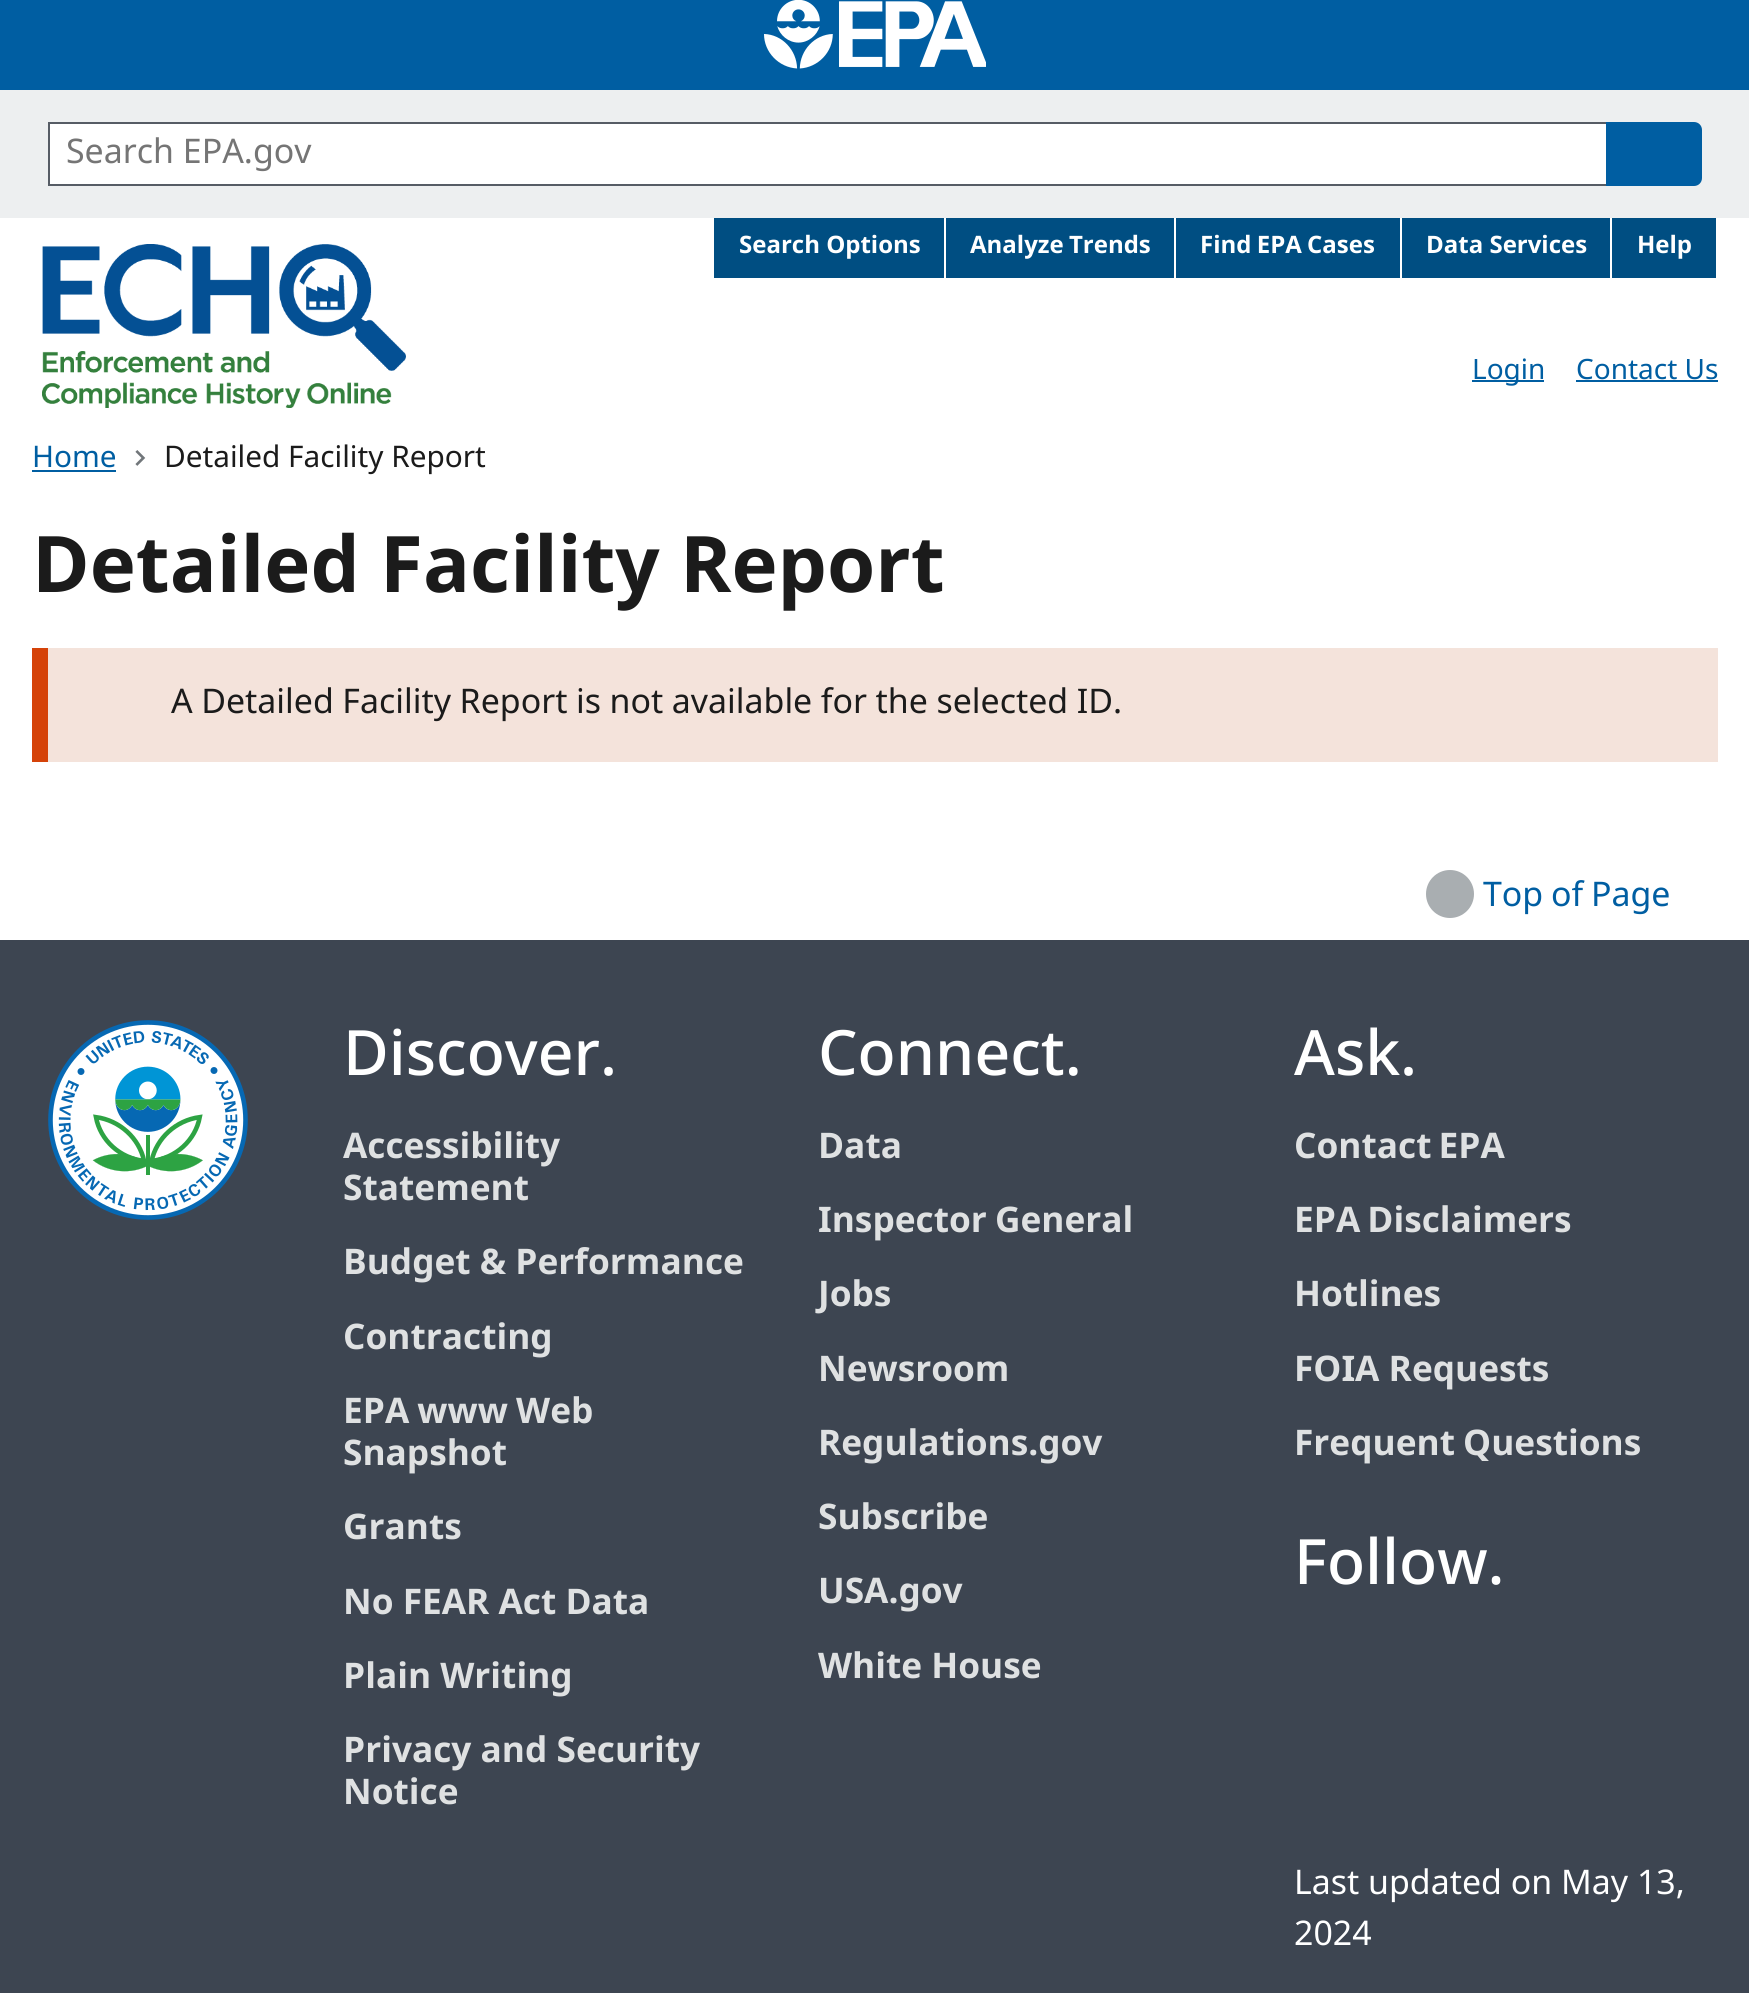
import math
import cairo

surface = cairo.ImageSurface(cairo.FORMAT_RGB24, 1749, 1993)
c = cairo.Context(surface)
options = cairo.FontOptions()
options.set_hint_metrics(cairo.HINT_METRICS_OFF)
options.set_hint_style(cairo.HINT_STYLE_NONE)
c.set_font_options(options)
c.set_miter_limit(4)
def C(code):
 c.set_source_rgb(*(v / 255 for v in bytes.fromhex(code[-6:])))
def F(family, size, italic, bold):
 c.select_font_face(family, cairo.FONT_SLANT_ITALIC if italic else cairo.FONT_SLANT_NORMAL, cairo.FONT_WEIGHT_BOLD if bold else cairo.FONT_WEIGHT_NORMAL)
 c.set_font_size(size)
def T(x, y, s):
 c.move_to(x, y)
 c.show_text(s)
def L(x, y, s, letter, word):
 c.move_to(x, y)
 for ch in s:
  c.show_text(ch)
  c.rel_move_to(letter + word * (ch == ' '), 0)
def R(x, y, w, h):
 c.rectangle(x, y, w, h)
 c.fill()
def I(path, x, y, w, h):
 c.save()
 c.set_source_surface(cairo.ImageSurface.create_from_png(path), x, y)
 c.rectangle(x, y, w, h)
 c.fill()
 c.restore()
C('ffffff')
c.paint()
C('005ea2')
R(0,0,1749,90)
I('1.png',764,0,222,69)
C('edeff0')
R(0,90,1749,128)
C('ffffff')
R(50,124,1556,60)
C('565c65')
R(48,122,1558,2)
R(48,184,1558,2)
R(48,122,2,64)
F('Noto Sans Arabic',33.9,0,0)
C('757575')
T(66,163,'Search EPA.gov')
C('005ea2')
c.new_path()
c.move_to(1606,122)
c.line_to(1694,122)
c.curve_to(1698.5,122,1702,125.5,1702,130)
c.line_to(1702,178)
c.curve_to(1702,182.5,1698.5,186,1694,186)
c.line_to(1606,186)
c.close_path()
c.fill()
I('2.png',42,244,364,164)
C('004e82')
R(714,218,230,60)
F('Noto Sans Arabic',24,0,1)
C('ffffff')
T(739,253,'Search Options')
C('004e82')
R(946,218,228,60)
C('ffffff')
L(970,253,'Analyze Trends',0,-1)
C('004e82')
R(1176,218,224,60)
C('ffffff')
L(1200,253,'Find EPA Cases',0,-1)
C('004e82')
R(1402,218,208,60)
C('ffffff')
T(1426,253,'Data Services')
C('004e82')
R(1612,218,104,60)
C('ffffff')
T(1637,253,'Help')
C('005ea2')
R(1472,380,72,2)
F('Noto Sans Arabic',28,0,0)
T(1472,379,'Login')
T(1576,379,'Contact Us')
R(1576,380,142,2)
F('Noto Sans Arabic',29.75,0,0)
T(32,467,'Home')
R(32,470,84,2)
I('3.png',135,450,11,16)
C('1b1b1b')
T(164,467,'Detailed Facility Report')
F('Noto Sans Arabic',78,0,1)
T(32,592,'Detailed Facility Report')
C('f4e3db')
R(48,648,1670,114)
C('d54309')
R(32,648,16,114)
F('Noto Sans Arabic',33.9,0,0)
C('1b1b1b')
L(171,713,'A Detailed Facility Report is not available for the selected ID.',0,-.25)
C('005ea2')
L(1483,906,'Top of Page',0,-1)
C('a9aeb1')
c.new_path()
c.arc(1450,894,24,0,2 * math.pi)
c.fill()
C('3d4551')
R(0,940,1749,1053)
I('4.png',48,1020,200,200)
F('Noto Sans Arabic Medium',62.5,0,0)
C('ffffff')
T(343,1075,'Discover.')
F('Noto Sans Arabic',35.25,0,1)
C('dfe1e2')
T(343,1158,'Accessibility')
T(343,1200,'Statement')
T(343,1274,'Budget & Performance')
T(343,1349,'Contracting')
L(343,1423,'EPA www Web',0,-1)
T(343,1465,'Snapshot')
T(343,1539,'Grants')
T(343,1614,'No FEAR Act Data')
T(343,1688,'Plain Writing')
T(343,1762,'Privacy and Security')
T(343,1804,'Notice')
F('Noto Sans Arabic Medium',62.5,0,0)
C('ffffff')
T(818,1075,'Connect.')
F('Noto Sans Arabic',35.25,0,1)
C('dfe1e2')
T(818,1158,'Data')
L(818,1232,'Inspector General',0,-1)
T(818,1306,'Jobs')
T(818,1381,'Newsroom')
T(818,1455,'Regulations.gov')
T(818,1529,'Subscribe')
T(818,1603,'USA.gov')
T(818,1678,'White House')
F('Noto Sans Arabic Medium',62.5,0,0)
C('ffffff')
T(1294,1075,'Ask.')
F('Noto Sans Arabic',35.25,0,1)
C('dfe1e2')
L(1294,1158,'Contact EPA',0,-2)
L(1294,1232,'EPA Disclaimers',0,-2)
T(1294,1306,'Hotlines')
T(1294,1381,'FOIA Requests')
L(1294,1455,'Frequent Questions',0,-1)
F('Noto Sans Arabic Medium',62.5,0,0)
C('ffffff')
T(1294,1584,'Follow.')
F('Noto Sans Arabic',33.9,0,0)
T(1294,1894,'Last updated on May 13,')
T(1294,1945,'2024')
surface.write_to_png('o.png')
